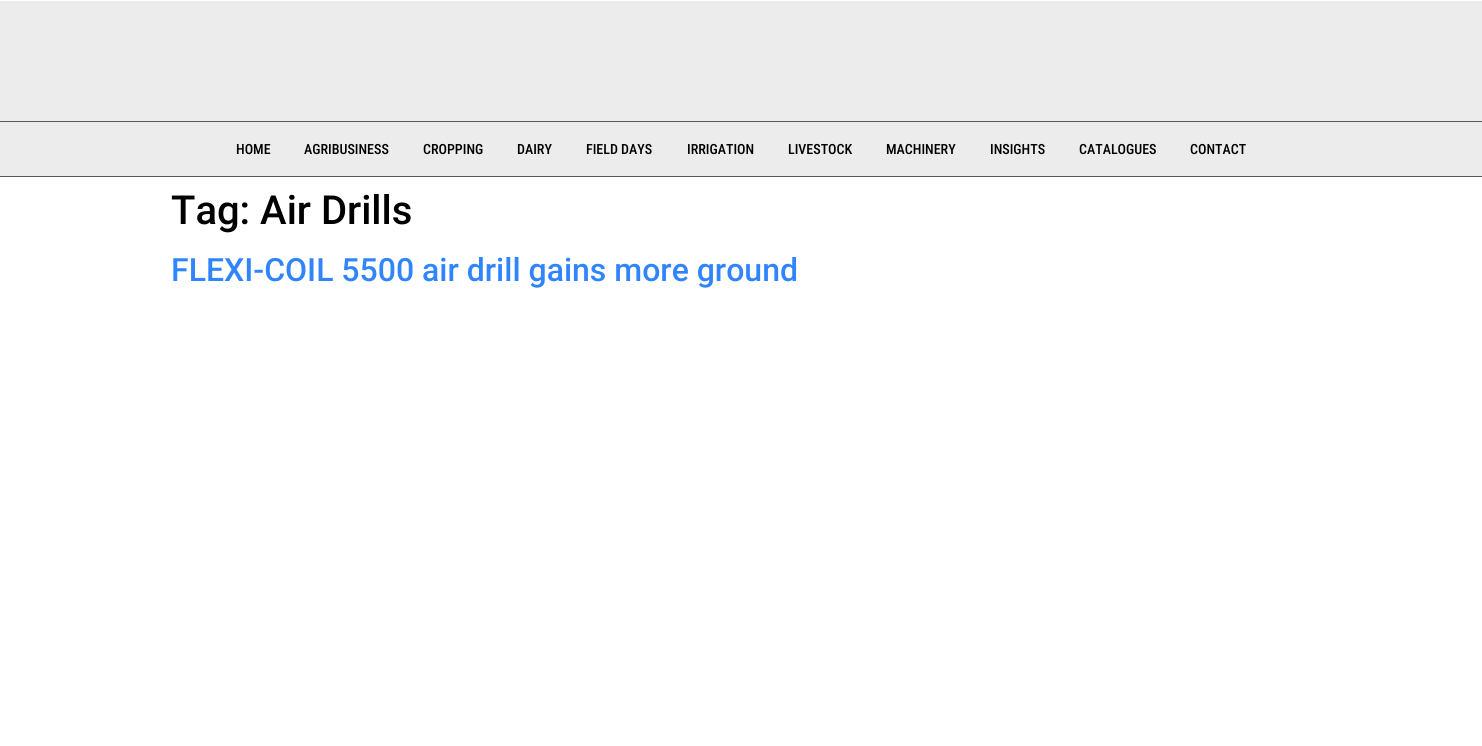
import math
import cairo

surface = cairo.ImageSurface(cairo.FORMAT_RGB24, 1482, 746)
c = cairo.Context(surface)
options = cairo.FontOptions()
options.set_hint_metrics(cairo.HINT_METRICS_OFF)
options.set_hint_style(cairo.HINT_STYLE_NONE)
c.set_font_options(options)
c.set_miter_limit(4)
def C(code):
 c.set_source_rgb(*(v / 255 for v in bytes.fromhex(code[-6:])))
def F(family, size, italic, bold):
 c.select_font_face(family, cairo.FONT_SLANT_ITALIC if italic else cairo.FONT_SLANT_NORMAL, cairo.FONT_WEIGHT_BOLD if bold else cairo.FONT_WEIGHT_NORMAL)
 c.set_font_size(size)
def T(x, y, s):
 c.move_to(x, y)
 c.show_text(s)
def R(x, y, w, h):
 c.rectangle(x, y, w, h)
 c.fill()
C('ffffff')
c.paint()
C('ececec')
R(0,1,1482,120)
R(0,122,1482,54)
C('54595f')
R(0,121,1482,1)
R(0,176,1482,1)
F('Roboto Condensed Medium',14,0,0)
C('000000')
T(236,154,'HOME')
T(304,154,'AGRIBUSINESS')
T(423,154,'CROPPING')
T(517,154,'DAIRY')
T(586,154,'FIELD DAYS')
T(687,154,'IRRIGATION')
T(788,154,'LIVESTOCK')
T(886,154,'MACHINERY')
T(990,154,'INSIGHTS')
T(1079,154,'CATALOGUES')
T(1190,154,'CONTACT')
F('Roboto Medium',40,0,0)
T(171,224,'Tag: Air Drills')
F('Roboto Medium',32,0,0)
C('3185fc')
T(171,281,'FLEXI-COIL 5500 air drill gains more ground')
surface.write_to_png('o.png')
